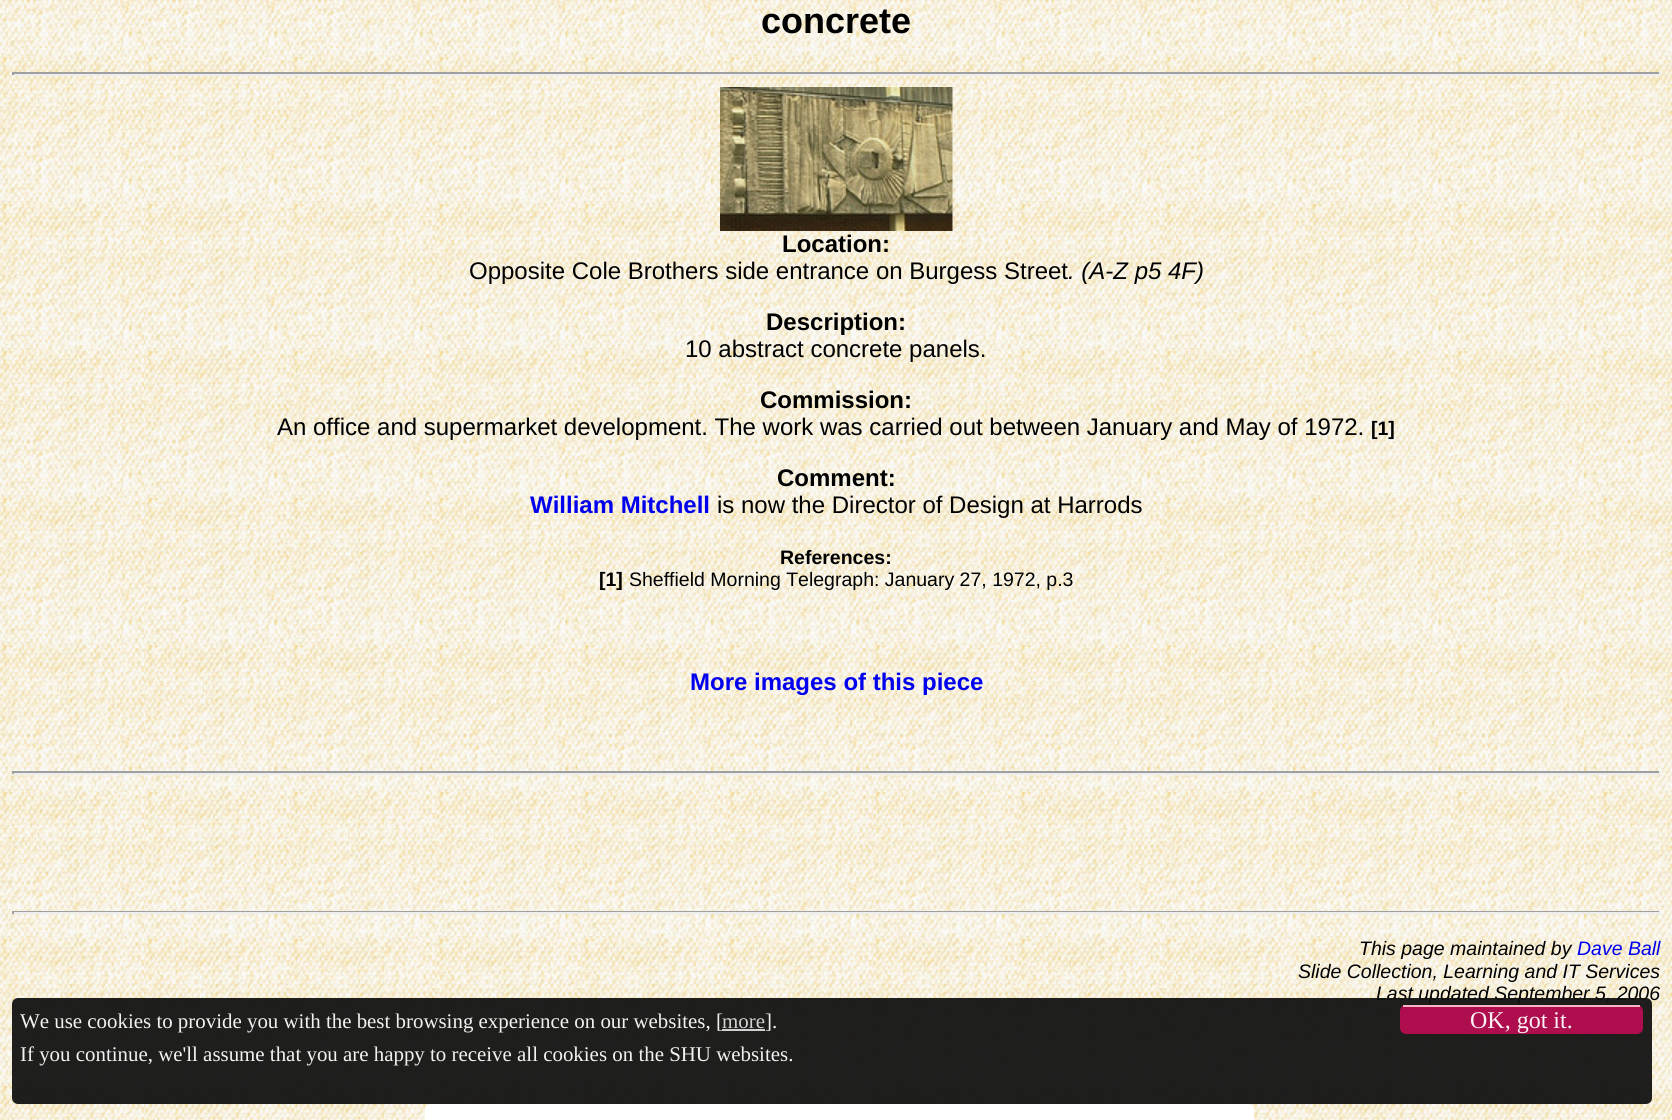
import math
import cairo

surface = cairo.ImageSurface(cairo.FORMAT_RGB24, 1672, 1120)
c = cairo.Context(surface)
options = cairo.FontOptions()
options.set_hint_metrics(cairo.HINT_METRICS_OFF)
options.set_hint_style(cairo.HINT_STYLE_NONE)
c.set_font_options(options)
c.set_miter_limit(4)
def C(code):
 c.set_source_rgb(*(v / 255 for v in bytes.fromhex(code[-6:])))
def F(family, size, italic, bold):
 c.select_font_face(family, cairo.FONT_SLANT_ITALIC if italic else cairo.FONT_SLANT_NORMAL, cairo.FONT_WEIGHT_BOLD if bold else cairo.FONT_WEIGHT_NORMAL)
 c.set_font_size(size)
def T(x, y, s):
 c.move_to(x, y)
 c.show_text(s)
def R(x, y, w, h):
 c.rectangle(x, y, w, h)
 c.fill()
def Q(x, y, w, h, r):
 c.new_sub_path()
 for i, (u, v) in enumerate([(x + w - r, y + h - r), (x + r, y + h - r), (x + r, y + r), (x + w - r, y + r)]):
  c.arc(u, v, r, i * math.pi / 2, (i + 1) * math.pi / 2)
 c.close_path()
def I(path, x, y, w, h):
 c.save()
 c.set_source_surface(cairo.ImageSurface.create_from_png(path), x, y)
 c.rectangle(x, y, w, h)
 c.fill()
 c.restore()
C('ffffff')
c.paint()
I('1.png',0,0,1672,1120)
F('Liberation Sans',36,0,1)
C('000000')
T(761,33,'concrete')
C('9f9f9f')
R(12,72,1649,2)
C('eeeeee')
R(1659,72,2,3)
R(12,74,1649,2)
C('9f9f9f')
R(12,72,2,3)
I('2.png',720,87,233,144)
F('Liberation Sans',24,0,1)
C('000000')
T(782,252,'Location:')
F('Liberation Sans',24,0,0)
T(469,279,'Opposite Cole Brothers side entrance on Burgess Street')
F('Liberation Sans',24,1,0)
T(1068,279,'. (A-Z p5 4F)')
F('Liberation Sans',24,0,1)
T(766,330,'Description:')
F('Liberation Sans',24,0,0)
T(685,357,'10 abstract concrete panels.')
F('Liberation Sans',24,0,1)
T(760,408,'Commission:')
F('Liberation Sans',24,0,0)
T(277,435,'An office and supermarket development. The work was carried out between January and May of 1972.')
F('Liberation Sans',19.5,0,1)
T(1371,435,'[1]')
F('Liberation Sans',24,0,1)
T(777,486,'Comment:')
C('0000ee')
T(530,513,'William Mitchell')
F('Liberation Sans',24,0,0)
C('000000')
T(717,513,'is now the Director of Design at Harrods')
F('Liberation Sans',19.5,0,1)
T(780,564,'References:')
T(599,586,'[1]')
F('Liberation Sans',19.5,0,0)
T(629,586,'Sheffield Morning Telegraph: January 27, 1972, p.3')
F('Liberation Sans',24,0,1)
C('0000ee')
T(690,690,'More images of this piece')
C('9f9f9f')
R(12,771,1649,2)
C('eeeeee')
R(1659,771,2,3)
R(12,773,1649,2)
C('9f9f9f')
R(12,771,2,3)
R(12,911,1649,1)
C('eeeeee')
R(1659,911,2,3)
R(12,912,1649,2)
C('9f9f9f')
R(12,911,2,3)
F('Liberation Sans',19.5,1,0)
C('000000')
T(1359,955,'This page maintained by')
C('0000ee')
T(1577,955,'Dave Ball')
C('000000')
T(1298,978,'Slide Collection, Learning and IT Services')
T(1376,1000,'Last updated September 5, 2006')
c.set_source_rgba(0.067,0.067,0.067,0.94)
Q(12,998,1640,106,6)
c.fill()
F('Liberation Serif',20.9,0,0)
C('f2f2f1')
T(20,1028,'We use cookies to provide you with the best browsing experience on our websites, [')
C('d2d2d1')
T(722,1028,'more')
c.set_source_rgba(0.867,0.867,0.867,0.94)
R(722,1029,43,2)
C('f2f2f1')
T(765,1028,'].')
T(20,1061,'If you continue, we\'ll assume that you are happy to receive all cookies on the SHU websites.')
c.set_source_rgba(0.718,0.051,0.314,0.94)
Q(1400,1005,243,29,6)
c.fill()
c.set_source_rgba(1,0.753,0.796,0.94)
R(1403,1005,237,2)
F('Liberation Serif',24,0,0)
C('faf1f4')
T(1470,1028,'OK, got it.')
C('ffffff')
Q(425,1104,829,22,6)
c.fill()
surface.write_to_png('o.png')
